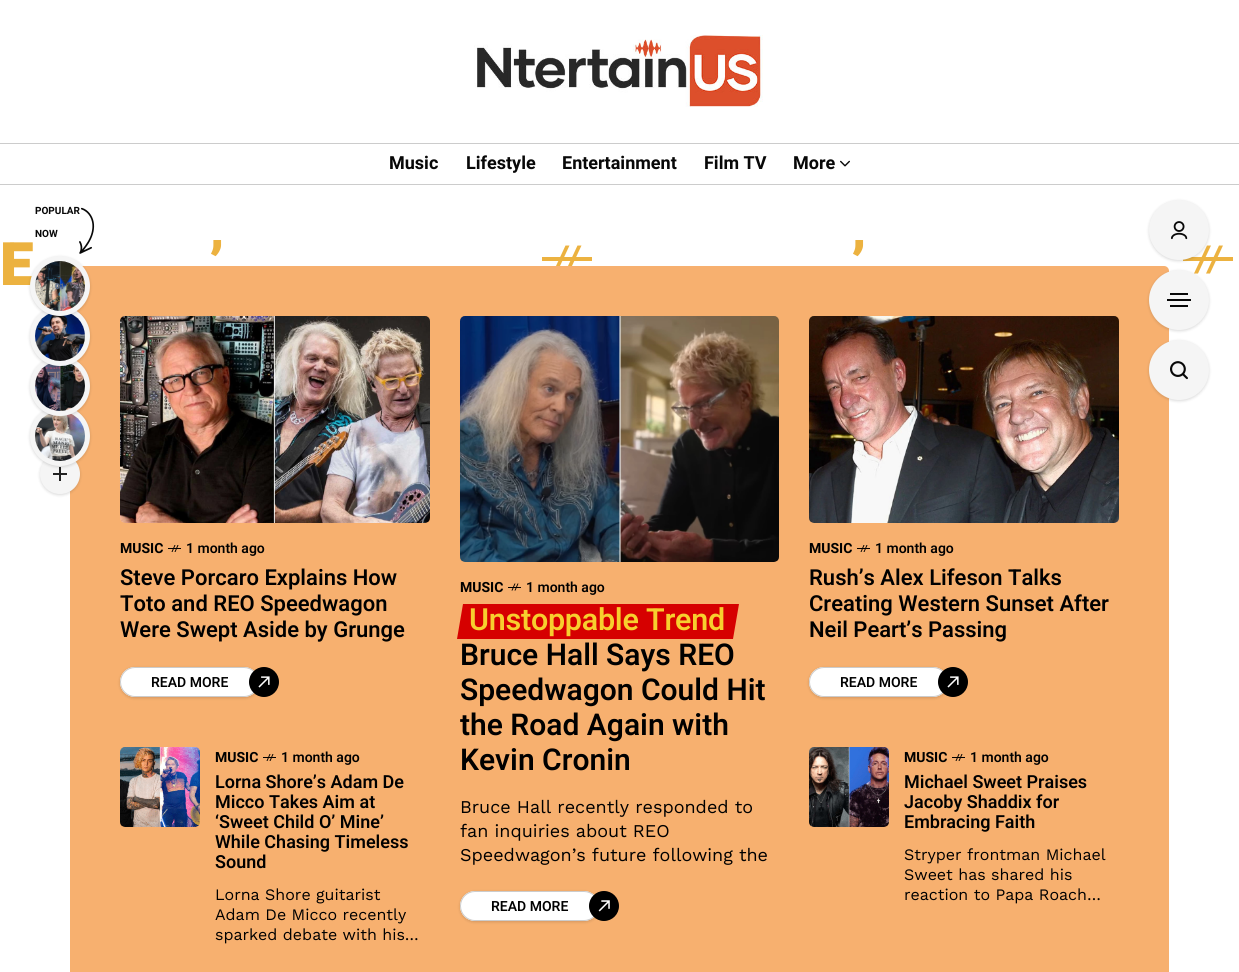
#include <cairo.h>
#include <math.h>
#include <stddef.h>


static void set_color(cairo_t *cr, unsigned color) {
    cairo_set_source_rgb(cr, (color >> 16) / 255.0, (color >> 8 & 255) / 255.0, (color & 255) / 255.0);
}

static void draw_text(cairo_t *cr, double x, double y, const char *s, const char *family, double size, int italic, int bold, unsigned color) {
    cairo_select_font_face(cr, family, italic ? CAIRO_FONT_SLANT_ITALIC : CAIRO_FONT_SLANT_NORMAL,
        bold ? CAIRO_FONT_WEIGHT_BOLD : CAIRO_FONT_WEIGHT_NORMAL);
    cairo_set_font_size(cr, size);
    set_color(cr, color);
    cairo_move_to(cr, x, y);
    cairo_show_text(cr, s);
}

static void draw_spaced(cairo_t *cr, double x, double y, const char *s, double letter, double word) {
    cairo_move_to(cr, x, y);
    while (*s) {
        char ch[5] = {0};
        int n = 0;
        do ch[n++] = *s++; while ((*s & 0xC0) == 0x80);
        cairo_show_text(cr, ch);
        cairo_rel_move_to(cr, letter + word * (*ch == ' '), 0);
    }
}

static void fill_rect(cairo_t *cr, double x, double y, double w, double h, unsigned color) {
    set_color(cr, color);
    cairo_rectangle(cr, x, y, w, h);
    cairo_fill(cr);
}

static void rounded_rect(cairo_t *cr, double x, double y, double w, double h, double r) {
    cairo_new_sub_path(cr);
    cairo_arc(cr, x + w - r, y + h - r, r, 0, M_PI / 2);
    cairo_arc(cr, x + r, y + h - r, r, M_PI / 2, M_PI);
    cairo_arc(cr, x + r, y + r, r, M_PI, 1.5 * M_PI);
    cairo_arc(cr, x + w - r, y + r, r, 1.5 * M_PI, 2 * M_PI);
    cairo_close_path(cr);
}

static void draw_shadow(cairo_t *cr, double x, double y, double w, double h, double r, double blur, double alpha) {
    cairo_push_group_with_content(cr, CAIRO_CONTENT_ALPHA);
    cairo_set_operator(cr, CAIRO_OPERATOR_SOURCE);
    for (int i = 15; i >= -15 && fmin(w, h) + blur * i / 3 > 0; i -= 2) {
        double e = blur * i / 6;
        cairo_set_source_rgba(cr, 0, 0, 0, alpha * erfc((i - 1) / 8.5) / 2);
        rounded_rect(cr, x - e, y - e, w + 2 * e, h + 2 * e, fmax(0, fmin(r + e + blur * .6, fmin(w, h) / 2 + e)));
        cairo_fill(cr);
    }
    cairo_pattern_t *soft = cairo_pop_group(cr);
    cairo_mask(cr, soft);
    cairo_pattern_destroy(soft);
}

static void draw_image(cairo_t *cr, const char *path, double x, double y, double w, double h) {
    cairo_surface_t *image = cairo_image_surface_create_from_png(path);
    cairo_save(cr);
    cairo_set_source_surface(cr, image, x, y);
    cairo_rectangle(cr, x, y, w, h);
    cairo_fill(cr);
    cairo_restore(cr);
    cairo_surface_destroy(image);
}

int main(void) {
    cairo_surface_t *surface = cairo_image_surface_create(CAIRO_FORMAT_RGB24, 1239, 972);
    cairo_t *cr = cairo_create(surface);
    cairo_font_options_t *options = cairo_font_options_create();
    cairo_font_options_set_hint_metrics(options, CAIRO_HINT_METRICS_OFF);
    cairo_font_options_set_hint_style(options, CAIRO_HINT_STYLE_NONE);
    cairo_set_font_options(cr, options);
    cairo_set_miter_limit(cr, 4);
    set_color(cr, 0xFFFFFF);
    cairo_paint(cr);
    draw_image(cr, "assets/img1.png", 474, 35, 289, 72);
    fill_rect(cr, 0, 143, 1239, 1, 0xCCCCCC);
    fill_rect(cr, 0, 184, 1239, 1, 0xCCCCCC);
    draw_text(cr, 389, 169, "Music", "Heebo", 18, 0, 1, 0x080808);
    draw_text(cr, 466, 169, "Lifestyle", "Heebo", 18, 0, 1, 0x080808);
    draw_text(cr, 562, 169, "Entertainment", "Heebo", 18, 0, 1, 0x080808);
    draw_text(cr, 704, 169, "Film TV", "Heebo", 18, 0, 1, 0x080808);
    draw_text(cr, 793, 169, "More", "Heebo", 18, 0, 1, 0x080808);
    draw_image(cr, "assets/img2.png", 840, 160, 10, 7);
    draw_text(cr, 0, 285, "E", "Heebo Black", 60, 0, 0, 0xECB240);
    draw_text(cr, 209, 285, "’", "Heebo Black", 60, 0, 0, 0xECB240);
    fill_rect(cr, 542, 257, 50, 4, 0xECB240);
    cairo_new_path(cr);
    cairo_move_to(cr, 577.5, 245.5);
    cairo_line_to(cr, 581.5, 245.5);
    cairo_line_to(cr, 568.5, 273.5);
    cairo_line_to(cr, 564.5, 273.5);
    cairo_close_path(cr);
    cairo_fill(cr);
    cairo_new_path(cr);
    cairo_move_to(cr, 565.5, 245.5);
    cairo_line_to(cr, 569.5, 245.5);
    cairo_line_to(cr, 556.5, 273.5);
    cairo_line_to(cr, 552.5, 273.5);
    cairo_close_path(cr);
    cairo_fill(cr);
    draw_text(cr, 851, 285, "’", "Heebo Black", 60, 0, 0, 0xECB240);
    fill_rect(cr, 1183, 257, 50, 4, 0xECB240);
    cairo_new_path(cr);
    cairo_move_to(cr, 1219, 245.5);
    cairo_line_to(cr, 1223, 245.5);
    cairo_line_to(cr, 1210, 273.5);
    cairo_line_to(cr, 1206, 273.5);
    cairo_close_path(cr);
    cairo_fill(cr);
    cairo_new_path(cr);
    cairo_move_to(cr, 1207, 245.5);
    cairo_line_to(cr, 1211, 245.5);
    cairo_line_to(cr, 1198, 273.5);
    cairo_line_to(cr, 1194, 273.5);
    cairo_close_path(cr);
    cairo_fill(cr);
    set_color(cr, 0xF7B06F);
    rounded_rect(cr, 70, 266, 1099, 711, 5);
    cairo_fill(cr);
    draw_image(cr, "assets/img3.png", 120, 316, 310, 207);
    draw_text(cr, 120, 553, "MUSIC", "Heebo", 14, 0, 1, 0x000000);
    fill_rect(cr, 168, 548, 13, 1, 0x000000);
    cairo_new_path(cr);
    cairo_move_to(cr, 177.5, 545);
    cairo_line_to(cr, 178.5, 545);
    cairo_line_to(cr, 175.5, 552);
    cairo_line_to(cr, 174.5, 552);
    cairo_close_path(cr);
    cairo_fill(cr);
    cairo_new_path(cr);
    cairo_move_to(cr, 174.5, 545);
    cairo_line_to(cr, 175.5, 545);
    cairo_line_to(cr, 172.5, 552);
    cairo_line_to(cr, 171.5, 552);
    cairo_close_path(cr);
    cairo_fill(cr);
    draw_text(cr, 186, 553, "1 month ago", "Heebo SemiBold", 14, 0, 0, 0x000000);
    draw_text(cr, 120, 585, "Steve Porcaro Explains How", "Heebo SemiBold", 22, 0, 0, 0x000000);
    draw_text(cr, 120, 611, "Toto and REO Speedwagon", "Heebo SemiBold", 22, 0, 0, 0x000000);
    draw_text(cr, 120, 637, "Were Swept Aside by Grunge", "Heebo SemiBold", 22, 0, 0, 0x000000);
    set_color(cr, 0xFFFFFF);
    rounded_rect(cr, 120, 667, 139, 30, 15);
    cairo_fill(cr);
    cairo_save(cr);
    cairo_set_fill_rule(cr, CAIRO_FILL_RULE_EVEN_ODD);
    cairo_new_path(cr);
    cairo_move_to(cr, 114, 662);
    cairo_line_to(cr, 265, 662);
    cairo_line_to(cr, 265, 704);
    cairo_line_to(cr, 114, 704);
    cairo_close_path(cr);
    cairo_move_to(cr, 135, 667);
    cairo_line_to(cr, 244, 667);
    cairo_curve_to(cr, 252.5, 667, 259, 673.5, 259, 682);
    cairo_curve_to(cr, 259, 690.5, 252.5, 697, 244, 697);
    cairo_line_to(cr, 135, 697);
    cairo_curve_to(cr, 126.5, 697, 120, 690.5, 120, 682);
    cairo_curve_to(cr, 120, 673.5, 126.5, 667, 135, 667);
    cairo_close_path(cr);
    cairo_clip(cr);
    set_color(cr, 0x000000);
    draw_shadow(cr, 120, 668, 139, 30, 15, 1.5, 0.15);
    cairo_restore(cr);
    rounded_rect(cr, 120.5, 667.5, 138, 29, 14.5);
    set_color(cr, 0xCCCCCC);
    cairo_set_line_width(cr, 1);
    cairo_stroke(cr);
    draw_text(cr, 151, 687, "READ MORE", "Heebo SemiBold", 14, 0, 0, 0x000000);
    cairo_new_path(cr);
    cairo_arc(cr, 264, 682, 15, 0, 2 * M_PI);
    cairo_fill(cr);
    draw_image(cr, "assets/img4.png", 258, 676, 12, 12);
    draw_image(cr, "assets/img5.png", 120, 747, 80, 80);
    draw_text(cr, 215, 762, "MUSIC", "Heebo", 14, 0, 1, 0x000000);
    fill_rect(cr, 263, 757, 13, 1, 0x000000);
    cairo_new_path(cr);
    cairo_move_to(cr, 272.5, 754);
    cairo_line_to(cr, 273.5, 754);
    cairo_line_to(cr, 270.5, 761);
    cairo_line_to(cr, 269.5, 761);
    cairo_close_path(cr);
    cairo_fill(cr);
    cairo_new_path(cr);
    cairo_move_to(cr, 269.5, 754);
    cairo_line_to(cr, 270.5, 754);
    cairo_line_to(cr, 267.5, 761);
    cairo_line_to(cr, 266.5, 761);
    cairo_close_path(cr);
    cairo_fill(cr);
    draw_text(cr, 281, 762, "1 month ago", "Heebo SemiBold", 14, 0, 0, 0x000000);
    draw_text(cr, 215, 788, "Lorna Shore’s Adam De", "Heebo SemiBold", 18, 0, 0, 0x000000);
    draw_text(cr, 215, 808, "Micco Takes Aim at", "Heebo SemiBold", 18, 0, 0, 0x000000);
    draw_text(cr, 215, 828, "‘Sweet Child O’ Mine’", "Heebo SemiBold", 18, 0, 0, 0x000000);
    draw_text(cr, 215, 848, "While Chasing Timeless", "Heebo SemiBold", 18, 0, 0, 0x000000);
    draw_text(cr, 215, 868, "Sound", "Heebo SemiBold", 18, 0, 0, 0x000000);
    draw_text(cr, 215, 900, "Lorna Shore guitarist", "Work Sans", 16, 0, 0, 0x000000);
    draw_text(cr, 215, 920, "Adam De Micco recently", "Work Sans", 16, 0, 0, 0x000000);
    draw_text(cr, 215, 940, "sparked debate with his…", "Work Sans", 16, 0, 0, 0x000000);
    draw_image(cr, "assets/img6.png", 460, 316, 319, 246);
    draw_text(cr, 460, 592, "MUSIC", "Heebo", 14, 0, 1, 0x000000);
    fill_rect(cr, 508, 587, 13, 1, 0x000000);
    cairo_new_path(cr);
    cairo_move_to(cr, 517.5, 583.5);
    cairo_line_to(cr, 518.5, 583.5);
    cairo_line_to(cr, 515.5, 590.5);
    cairo_line_to(cr, 514.5, 590.5);
    cairo_close_path(cr);
    cairo_fill(cr);
    cairo_new_path(cr);
    cairo_move_to(cr, 514.5, 583.5);
    cairo_line_to(cr, 515.5, 583.5);
    cairo_line_to(cr, 512.5, 590.5);
    cairo_line_to(cr, 511.5, 590.5);
    cairo_close_path(cr);
    cairo_fill(cr);
    draw_text(cr, 526, 592, "1 month ago", "Heebo SemiBold", 14, 0, 0, 0x000000);
    set_color(cr, 0xD60000);
    cairo_new_path(cr);
    cairo_move_to(cr, 463, 604);
    cairo_line_to(cr, 739, 604);
    cairo_line_to(cr, 733, 639);
    cairo_line_to(cr, 457, 639);
    cairo_close_path(cr);
    cairo_fill(cr);
    cairo_set_font_size(cr, 30.5);
    set_color(cr, 0xF7CF2E);
    draw_spaced(cr, 469, 630, "Unstoppable Trend", -0.25, 0);
    draw_text(cr, 460, 665, "Bruce Hall Says REO", "Heebo SemiBold", 30, 0, 0, 0x000000);
    draw_text(cr, 460, 700, "Speedwagon Could Hit", "Heebo SemiBold", 30, 0, 0, 0x000000);
    draw_text(cr, 460, 735, "the Road Again with", "Heebo SemiBold", 30, 0, 0, 0x000000);
    draw_text(cr, 460, 770, "Kevin Cronin", "Heebo SemiBold", 30, 0, 0, 0x000000);
    draw_text(cr, 460, 813, "Bruce Hall recently responded to", "Work Sans", 18, 0, 0, 0x000000);
    draw_text(cr, 460, 837, "fan inquiries about REO", "Work Sans", 18, 0, 0, 0x000000);
    draw_text(cr, 460, 861, "Speedwagon’s future following the", "Work Sans", 18, 0, 0, 0x000000);
    set_color(cr, 0xFFFFFF);
    rounded_rect(cr, 460, 891, 139, 30, 15);
    cairo_fill(cr);
    cairo_save(cr);
    cairo_set_fill_rule(cr, CAIRO_FILL_RULE_EVEN_ODD);
    cairo_new_path(cr);
    cairo_move_to(cr, 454, 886);
    cairo_line_to(cr, 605, 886);
    cairo_line_to(cr, 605, 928);
    cairo_line_to(cr, 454, 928);
    cairo_close_path(cr);
    cairo_move_to(cr, 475, 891);
    cairo_line_to(cr, 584, 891);
    cairo_curve_to(cr, 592.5, 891, 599, 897.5, 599, 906);
    cairo_curve_to(cr, 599, 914.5, 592.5, 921, 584, 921);
    cairo_line_to(cr, 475, 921);
    cairo_curve_to(cr, 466.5, 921, 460, 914.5, 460, 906);
    cairo_curve_to(cr, 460, 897.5, 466.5, 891, 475, 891);
    cairo_close_path(cr);
    cairo_clip(cr);
    set_color(cr, 0x000000);
    draw_shadow(cr, 460, 892, 139, 30, 15, 1.5, 0.15);
    cairo_restore(cr);
    rounded_rect(cr, 460.5, 891.5, 138, 29, 14.5);
    set_color(cr, 0xCCCCCC);
    cairo_stroke(cr);
    draw_text(cr, 491, 911, "READ MORE", "Heebo SemiBold", 14, 0, 0, 0x000000);
    cairo_new_path(cr);
    cairo_arc(cr, 604, 906, 15, 0, 2 * M_PI);
    cairo_fill(cr);
    draw_image(cr, "assets/img7.png", 598, 900, 12, 12);
    draw_image(cr, "assets/img8.png", 809, 316, 310, 207);
    draw_text(cr, 809, 553, "MUSIC", "Heebo", 14, 0, 1, 0x000000);
    fill_rect(cr, 857, 548, 13, 1, 0x000000);
    cairo_new_path(cr);
    cairo_move_to(cr, 866.5, 545);
    cairo_line_to(cr, 867.5, 545);
    cairo_line_to(cr, 864.5, 552);
    cairo_line_to(cr, 863.5, 552);
    cairo_close_path(cr);
    cairo_fill(cr);
    cairo_new_path(cr);
    cairo_move_to(cr, 863.5, 545);
    cairo_line_to(cr, 864.5, 545);
    cairo_line_to(cr, 861.5, 552);
    cairo_line_to(cr, 860.5, 552);
    cairo_close_path(cr);
    cairo_fill(cr);
    draw_text(cr, 875, 553, "1 month ago", "Heebo SemiBold", 14, 0, 0, 0x000000);
    draw_text(cr, 809, 585, "Rush’s Alex Lifeson Talks", "Heebo SemiBold", 22, 0, 0, 0x000000);
    draw_text(cr, 809, 611, "Creating Western Sunset After", "Heebo SemiBold", 22, 0, 0, 0x000000);
    draw_text(cr, 809, 637, "Neil Peart’s Passing", "Heebo SemiBold", 22, 0, 0, 0x000000);
    set_color(cr, 0xFFFFFF);
    rounded_rect(cr, 809, 667, 139, 30, 15);
    cairo_fill(cr);
    cairo_save(cr);
    cairo_set_fill_rule(cr, CAIRO_FILL_RULE_EVEN_ODD);
    cairo_new_path(cr);
    cairo_move_to(cr, 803, 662);
    cairo_line_to(cr, 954, 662);
    cairo_line_to(cr, 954, 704);
    cairo_line_to(cr, 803, 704);
    cairo_close_path(cr);
    cairo_move_to(cr, 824, 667);
    cairo_line_to(cr, 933, 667);
    cairo_curve_to(cr, 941.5, 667, 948, 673.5, 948, 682);
    cairo_curve_to(cr, 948, 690.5, 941.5, 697, 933, 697);
    cairo_line_to(cr, 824, 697);
    cairo_curve_to(cr, 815.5, 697, 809, 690.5, 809, 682);
    cairo_curve_to(cr, 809, 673.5, 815.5, 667, 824, 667);
    cairo_close_path(cr);
    cairo_clip(cr);
    set_color(cr, 0x000000);
    draw_shadow(cr, 809, 668, 139, 30, 15, 1.5, 0.15);
    cairo_restore(cr);
    rounded_rect(cr, 809.5, 667.5, 138, 29, 14.5);
    set_color(cr, 0xCCCCCC);
    cairo_stroke(cr);
    draw_text(cr, 840, 687, "READ MORE", "Heebo SemiBold", 14, 0, 0, 0x000000);
    cairo_new_path(cr);
    cairo_arc(cr, 953, 682, 15, 0, 2 * M_PI);
    cairo_fill(cr);
    draw_image(cr, "assets/img4.png", 947, 676, 12, 12);
    draw_image(cr, "assets/img9.png", 809, 747, 80, 80);
    draw_text(cr, 904, 762, "MUSIC", "Heebo", 14, 0, 1, 0x000000);
    fill_rect(cr, 952, 757, 13, 1, 0x000000);
    cairo_new_path(cr);
    cairo_move_to(cr, 961.5, 754);
    cairo_line_to(cr, 962.5, 754);
    cairo_line_to(cr, 959.5, 761);
    cairo_line_to(cr, 958.5, 761);
    cairo_close_path(cr);
    cairo_fill(cr);
    cairo_new_path(cr);
    cairo_move_to(cr, 958.5, 754);
    cairo_line_to(cr, 959.5, 754);
    cairo_line_to(cr, 956.5, 761);
    cairo_line_to(cr, 955.5, 761);
    cairo_close_path(cr);
    cairo_fill(cr);
    draw_text(cr, 970, 762, "1 month ago", "Heebo SemiBold", 14, 0, 0, 0x000000);
    draw_text(cr, 904, 788, "Michael Sweet Praises", "Heebo SemiBold", 18, 0, 0, 0x000000);
    draw_text(cr, 904, 808, "Jacoby Shaddix for", "Heebo SemiBold", 18, 0, 0, 0x000000);
    draw_text(cr, 904, 828, "Embracing Faith", "Heebo SemiBold", 18, 0, 0, 0x000000);
    draw_text(cr, 904, 860, "Stryper frontman Michael", "Work Sans", 16, 0, 0, 0x000000);
    draw_text(cr, 904, 880, "Sweet has shared his", "Work Sans", 16, 0, 0, 0x000000);
    draw_text(cr, 904, 900, "reaction to Papa Roach…", "Work Sans", 16, 0, 0, 0x000000);
    set_color(cr, 0x000000);
    draw_shadow(cr, 1149, 201, 60, 60, 30, 1.5, 0.15);
    set_color(cr, 0xF5F5F5);
    cairo_arc(cr, 1179, 230, 30, 0, 2 * M_PI);
    cairo_fill(cr);
    draw_image(cr, "assets/img10.png", 1171, 221, 17, 19);
    set_color(cr, 0x000000);
    draw_shadow(cr, 1149, 271, 60, 60, 30, 1.5, 0.15);
    set_color(cr, 0xF5F5F5);
    cairo_arc(cr, 1179, 300, 30, 0, 2 * M_PI);
    cairo_fill(cr);
    fill_rect(cr, 1167, 299, 24, 2, 0x080808);
    fill_rect(cr, 1170, 293, 18, 2, 0x080808);
    fill_rect(cr, 1170, 305, 18, 2, 0x080808);
    set_color(cr, 0x000000);
    draw_shadow(cr, 1149, 341, 60, 60, 30, 1.5, 0.15);
    set_color(cr, 0xF5F5F5);
    cairo_arc(cr, 1179, 370, 30, 0, 2 * M_PI);
    cairo_fill(cr);
    draw_image(cr, "assets/img11.png", 1170, 361, 18, 19);
    draw_text(cr, 35, 214, "POPULAR", "Heebo", 10, 0, 1, 0x080808);
    set_color(cr, 0x000000);
    draw_shadow(cr, 40, 455, 40, 40, 20, 1.5, 0.15);
    set_color(cr, 0xF5F5F5);
    cairo_arc(cr, 60, 474, 20, 0, 2 * M_PI);
    cairo_fill(cr);
    fill_rect(cr, 53, 473, 14, 2, 0x222222);
    fill_rect(cr, 59, 467, 2, 14, 0x222222);
    set_color(cr, 0x000000);
    draw_shadow(cr, 30, 407, 60, 60, 30, 1.5, 0.15);
    set_color(cr, 0xF5F5F5);
    cairo_arc(cr, 60, 436, 30, 0, 2 * M_PI);
    cairo_fill(cr);
    draw_image(cr, "assets/img16.png", 35, 413, 50, 48);
    set_color(cr, 0x000000);
    draw_shadow(cr, 30, 357, 60, 60, 30, 1.5, 0.15);
    set_color(cr, 0xF5F5F5);
    cairo_arc(cr, 60, 386, 30, 0, 2 * M_PI);
    cairo_fill(cr);
    draw_image(cr, "assets/img15.png", 35, 363, 50, 48);
    set_color(cr, 0x000000);
    draw_shadow(cr, 30, 307, 60, 60, 30, 1.5, 0.15);
    set_color(cr, 0xF5F5F5);
    cairo_arc(cr, 60, 336, 30, 0, 2 * M_PI);
    cairo_fill(cr);
    draw_image(cr, "assets/img14.png", 35, 313, 50, 48);
    set_color(cr, 0x000000);
    draw_shadow(cr, 30, 257, 60, 60, 30, 1.5, 0.15);
    draw_image(cr, "assets/img12.png", 79, 207, 16, 47);
    draw_text(cr, 35, 237, "NOW", "Heebo", 10, 0, 1, 0x080808);
    set_color(cr, 0xF5F5F5);
    cairo_new_path(cr);
    cairo_arc(cr, 60, 286, 30, 0, 2 * M_PI);
    cairo_fill(cr);
    draw_image(cr, "assets/img13.png", 35, 261, 50, 50);
    draw_text(cr, 55, 289, "01", "Heebo Black", 8, 0, 0, 0x596B89);
    draw_text(cr, 55, 339, "02", "Heebo Black", 8, 0, 0, 0x342E2F);
    cairo_surface_write_to_png(surface, "output.png");
    cairo_font_options_destroy(options);
    cairo_destroy(cr);
    cairo_surface_destroy(surface);
    return 0;
}
